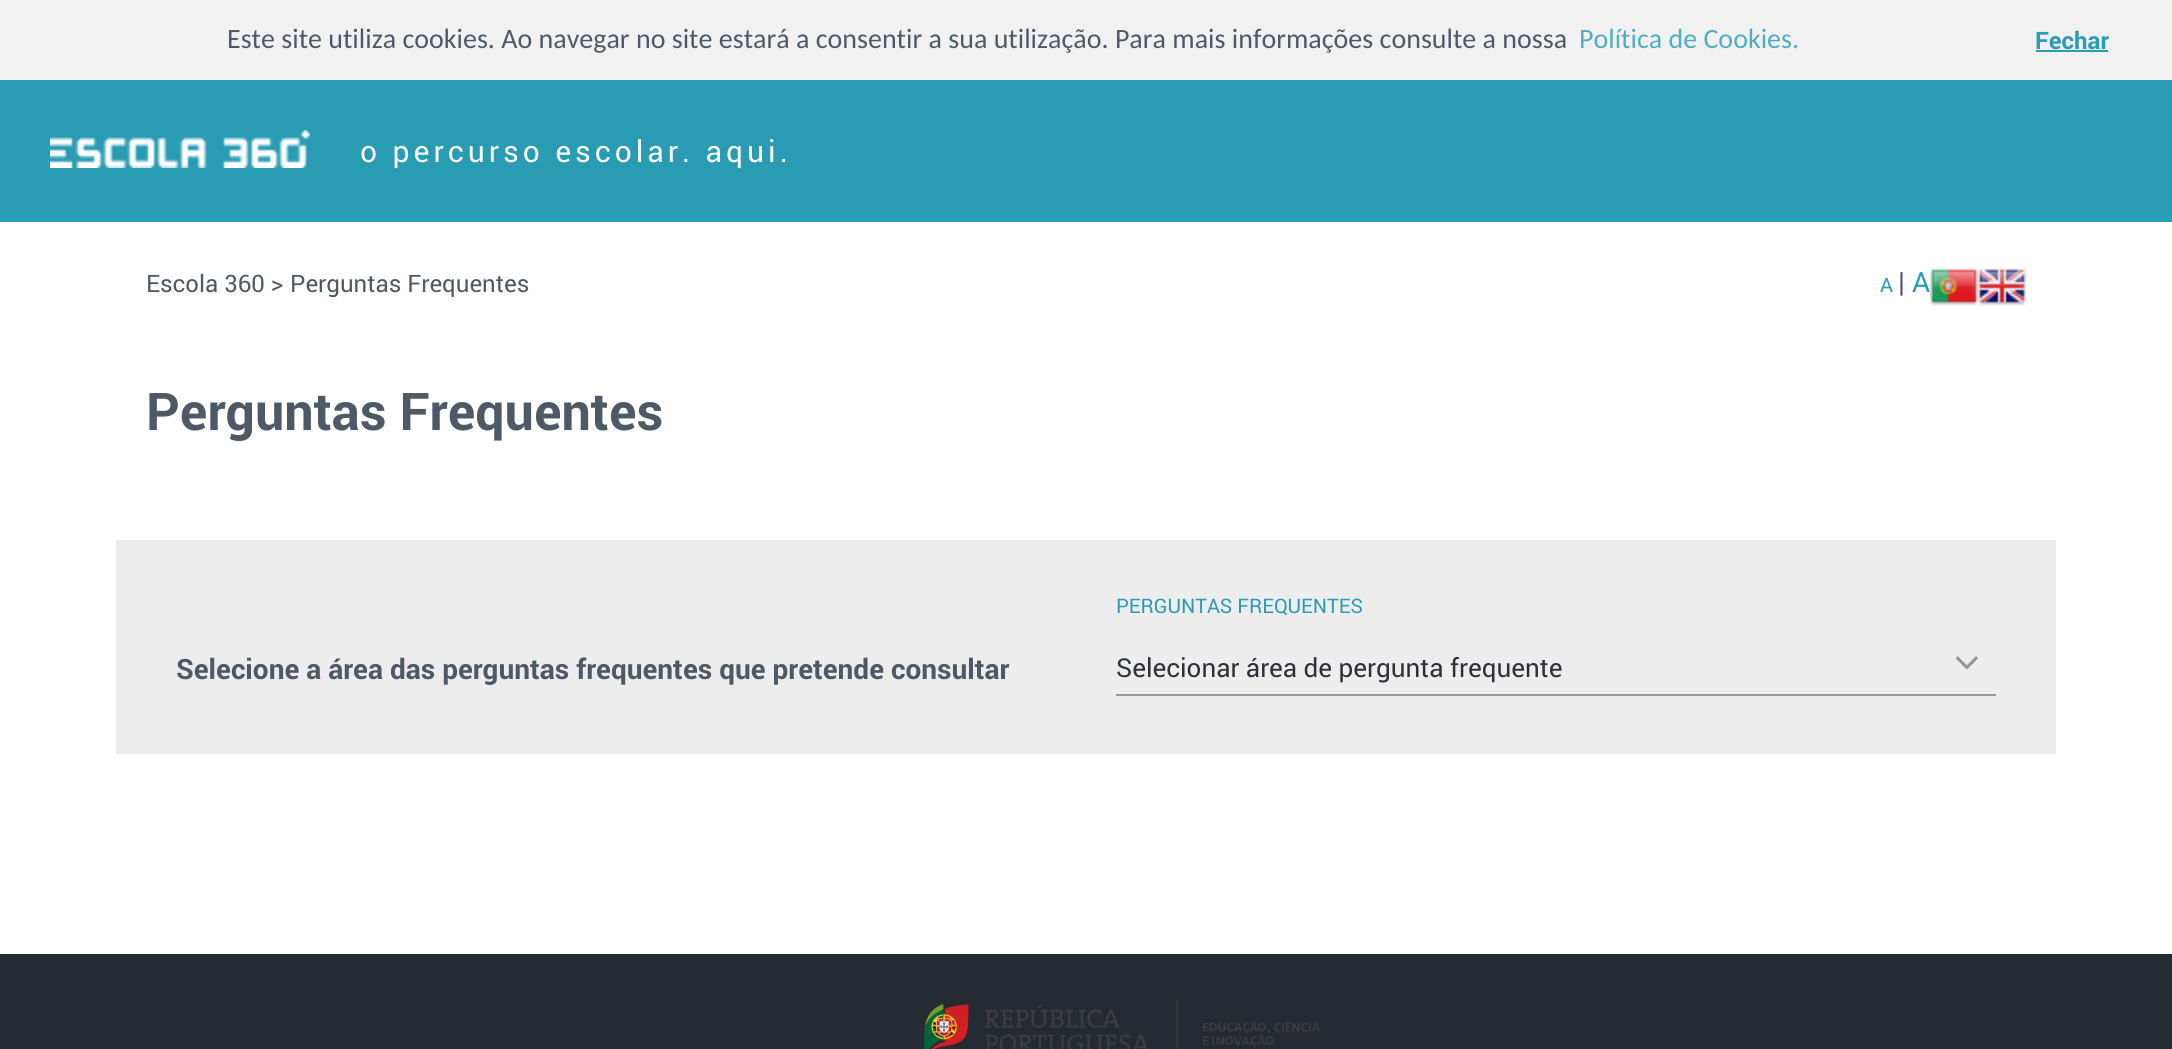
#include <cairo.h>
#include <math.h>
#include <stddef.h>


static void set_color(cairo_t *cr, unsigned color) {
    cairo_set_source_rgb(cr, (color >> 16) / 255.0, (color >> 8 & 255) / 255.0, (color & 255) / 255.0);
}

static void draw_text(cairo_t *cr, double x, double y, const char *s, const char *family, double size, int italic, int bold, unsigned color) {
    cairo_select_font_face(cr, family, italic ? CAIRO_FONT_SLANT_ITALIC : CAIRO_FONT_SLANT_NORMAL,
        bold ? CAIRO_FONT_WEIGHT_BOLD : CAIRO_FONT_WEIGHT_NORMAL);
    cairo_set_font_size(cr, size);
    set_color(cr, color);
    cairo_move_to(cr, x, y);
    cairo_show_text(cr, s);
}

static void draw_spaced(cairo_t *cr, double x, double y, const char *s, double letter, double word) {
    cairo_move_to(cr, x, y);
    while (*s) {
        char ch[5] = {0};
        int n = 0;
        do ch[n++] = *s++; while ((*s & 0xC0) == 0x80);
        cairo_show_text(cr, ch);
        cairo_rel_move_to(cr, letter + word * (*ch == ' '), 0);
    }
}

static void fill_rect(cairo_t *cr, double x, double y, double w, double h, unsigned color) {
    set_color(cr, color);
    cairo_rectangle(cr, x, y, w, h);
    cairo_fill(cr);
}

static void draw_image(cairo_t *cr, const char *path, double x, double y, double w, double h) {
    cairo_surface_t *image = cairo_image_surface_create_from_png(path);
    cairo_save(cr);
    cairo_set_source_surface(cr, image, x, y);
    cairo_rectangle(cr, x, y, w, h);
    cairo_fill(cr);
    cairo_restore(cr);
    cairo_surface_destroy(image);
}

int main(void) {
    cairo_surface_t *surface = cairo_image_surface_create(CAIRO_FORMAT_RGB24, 2172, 1049);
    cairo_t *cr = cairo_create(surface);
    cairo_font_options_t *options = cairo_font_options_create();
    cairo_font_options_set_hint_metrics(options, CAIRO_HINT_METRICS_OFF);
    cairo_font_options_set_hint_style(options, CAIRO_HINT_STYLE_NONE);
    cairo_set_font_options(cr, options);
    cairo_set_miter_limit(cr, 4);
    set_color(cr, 0xFFFFFF);
    cairo_paint(cr);
    fill_rect(cr, 0, 0, 2172, 80, 0xF1F1F2);
    draw_text(cr, 227, 48, "Este site utiliza cookies. Ao navegar no site estará a consentir a sua utilização. Para mais informações consulte a nossa", "Carlito", 28, 0, 0, 0x4F5966);
    draw_text(cr, 1579, 48, "Política de Cookies.", "Carlito", 28, 0, 0, 0x51ADC0);
    draw_text(cr, 2035, 49, "Fechar", "Roboto", 24, 0, 1, 0x299CB4);
    fill_rect(cr, 2036, 50, 72, 2, 0x299CB4);
    fill_rect(cr, 0, 80, 2172, 142, 0x299CB4);
    draw_image(cr, "assets/img1.png", 50, 130, 260, 38);
    cairo_select_font_face(cr, "Roboto", CAIRO_FONT_SLANT_NORMAL, CAIRO_FONT_WEIGHT_NORMAL);
    cairo_set_font_size(cr, 30);
    set_color(cr, 0xFFFFFF);
    draw_spaced(cr, 360, 162, "o percurso escolar. aqui.", 4, 0);
    draw_text(cr, 146, 292, "Escola 360 >", "Roboto", 24, 0, 0, 0x4F5966);
    draw_text(cr, 290, 292, "Perguntas Frequentes", "Roboto", 24, 0, 0, 0x4F5966);
    draw_text(cr, 1880, 292, "A", "Roboto", 20, 0, 0, 0x299CB4);
    draw_text(cr, 1898, 292, "|", "Roboto", 28, 0, 0, 0x4F5966);
    draw_text(cr, 1912, 292, "A", "Roboto", 28, 0, 0, 0x299CB4);
    draw_image(cr, "assets/img2.png", 1930, 268, 48, 38);
    draw_image(cr, "assets/img3.png", 1978, 268, 48, 38);
    draw_text(cr, 146, 430, "Perguntas Frequentes", "Roboto", 52, 0, 1, 0x4F5966);
    fill_rect(cr, 116, 540, 1940, 214, 0xEDEDED);
    draw_text(cr, 176, 679, "Selecione a área das perguntas frequentes que pretende consultar", "Roboto", 28, 0, 1, 0x4F5966);
    draw_text(cr, 1116, 613, "PERGUNTAS FREQUENTES", "Roboto", 20, 0, 0, 0x299CB4);
    fill_rect(cr, 1116, 694, 880, 2, 0x999999);
    draw_text(cr, 1116, 677, "Selecionar área de pergunta frequente", "Roboto", 26, 0, 0, 0x2E3138);
    draw_image(cr, "assets/img4.png", 1955, 656, 23, 14);
    fill_rect(cr, 0, 954, 2172, 95, 0x262B33);
    draw_image(cr, "assets/img5.png", 924, 1000, 396, 49);
    cairo_surface_write_to_png(surface, "output.png");
    cairo_font_options_destroy(options);
    cairo_destroy(cr);
    cairo_surface_destroy(surface);
    return 0;
}
